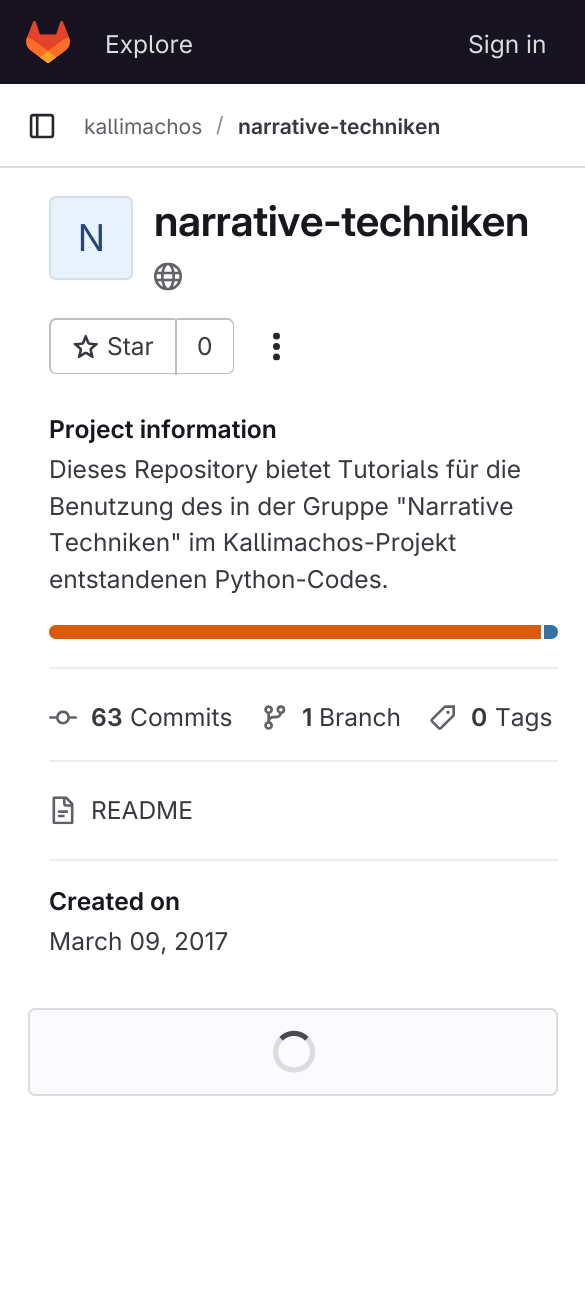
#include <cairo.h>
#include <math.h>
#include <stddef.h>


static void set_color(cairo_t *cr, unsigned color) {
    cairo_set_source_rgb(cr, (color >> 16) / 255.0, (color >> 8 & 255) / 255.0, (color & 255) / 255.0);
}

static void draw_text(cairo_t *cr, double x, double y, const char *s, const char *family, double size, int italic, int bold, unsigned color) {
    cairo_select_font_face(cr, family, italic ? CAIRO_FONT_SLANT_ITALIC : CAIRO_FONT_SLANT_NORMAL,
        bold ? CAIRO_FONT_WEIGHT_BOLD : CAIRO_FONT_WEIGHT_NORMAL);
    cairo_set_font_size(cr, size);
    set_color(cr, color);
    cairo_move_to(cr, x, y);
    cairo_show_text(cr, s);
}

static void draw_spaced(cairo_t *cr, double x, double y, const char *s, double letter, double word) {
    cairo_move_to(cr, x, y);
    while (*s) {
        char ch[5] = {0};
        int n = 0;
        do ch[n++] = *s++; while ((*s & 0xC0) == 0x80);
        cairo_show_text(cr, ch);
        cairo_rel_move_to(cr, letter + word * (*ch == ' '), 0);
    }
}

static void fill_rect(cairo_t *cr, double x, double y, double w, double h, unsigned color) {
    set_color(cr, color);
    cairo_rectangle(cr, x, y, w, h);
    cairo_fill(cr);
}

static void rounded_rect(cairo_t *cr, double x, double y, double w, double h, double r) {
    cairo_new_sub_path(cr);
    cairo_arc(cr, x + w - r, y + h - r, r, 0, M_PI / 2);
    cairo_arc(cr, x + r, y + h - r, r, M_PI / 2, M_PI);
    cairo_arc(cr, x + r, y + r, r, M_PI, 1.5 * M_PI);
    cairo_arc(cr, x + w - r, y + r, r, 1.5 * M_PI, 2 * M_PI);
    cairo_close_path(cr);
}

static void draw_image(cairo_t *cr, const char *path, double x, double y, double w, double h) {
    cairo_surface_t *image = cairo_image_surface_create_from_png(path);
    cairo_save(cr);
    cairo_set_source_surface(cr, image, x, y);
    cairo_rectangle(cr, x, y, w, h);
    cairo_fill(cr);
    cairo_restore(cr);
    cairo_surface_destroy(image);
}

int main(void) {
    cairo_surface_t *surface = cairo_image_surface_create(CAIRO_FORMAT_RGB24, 585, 1292);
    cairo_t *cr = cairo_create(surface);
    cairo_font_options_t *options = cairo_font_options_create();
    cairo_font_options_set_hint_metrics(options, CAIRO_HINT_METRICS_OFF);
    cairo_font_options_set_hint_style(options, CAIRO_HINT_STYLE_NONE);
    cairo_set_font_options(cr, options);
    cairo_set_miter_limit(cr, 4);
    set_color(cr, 0xFFFFFF);
    cairo_paint(cr);
    fill_rect(cr, 0, 0, 585, 84, 0x171321);
    draw_image(cr, "assets/img1.png", 26, 21, 44, 42);
    draw_text(cr, 105, 53, "Explore", "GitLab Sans", 24.5, 0, 0, 0xDCDCDE);
    draw_text(cr, 468, 53, "Sign in", "GitLab Sans", 24.5, 0, 0, 0xDCDCDE);
    fill_rect(cr, 0, 166, 585, 2, 0xDCDCDE);
    draw_image(cr, "assets/img2.png", 29, 113, 26, 26);
    draw_text(cr, 84, 134, "kallimachos", "GitLab Sans", 21, 0, 0, 0x626168);
    draw_text(cr, 216, 132, "/", "GitLab Sans", 21, 0, 0, 0x89888D);
    draw_text(cr, 238, 134, "narrative-techniken", "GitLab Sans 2 SemiBold", 21, 0, 0, 0x3A383F);
    set_color(cr, 0xE7F2FC);
    rounded_rect(cr, 49, 196, 84, 84, 7);
    cairo_fill(cr);
    rounded_rect(cr, 50, 197, 82, 82, 6);
    cairo_set_source_rgba(cr, 0.02, 0.02, 0.024, 0.08);
    cairo_stroke(cr);
    draw_text(cr, 78, 251, "N", "GitLab Sans 2", 37, 0, 0, 0x284779);
    cairo_select_font_face(cr, "GitLab Sans SemiBold", CAIRO_FONT_SLANT_NORMAL, CAIRO_FONT_WEIGHT_NORMAL);
    cairo_set_font_size(cr, 42);
    set_color(cr, 0x18171D);
    draw_spaced(cr, 154, 236, "narrative-techniken", -0.4, 0);
    draw_image(cr, "assets/img3.png", 154, 262, 28, 29);
    set_color(cr, 0xBFBFC3);
    cairo_set_fill_rule(cr, CAIRO_FILL_RULE_EVEN_ODD);
    cairo_new_path(cr);
    cairo_move_to(cr, 56, 318);
    cairo_line_to(cr, 175, 318);
    cairo_line_to(cr, 175, 374);
    cairo_line_to(cr, 56, 374);
    cairo_curve_to(cr, 52, 374, 49, 371, 49, 368);
    cairo_line_to(cr, 49, 326);
    cairo_curve_to(cr, 49, 322, 52, 318, 56, 318);
    cairo_close_path(cr);
    cairo_move_to(cr, 56, 320);
    cairo_line_to(cr, 175, 320);
    cairo_line_to(cr, 175, 373);
    cairo_line_to(cr, 56, 373);
    cairo_curve_to(cr, 53, 373, 51, 370, 51, 368);
    cairo_line_to(cr, 51, 326);
    cairo_curve_to(cr, 51, 323, 53, 320, 56, 320);
    cairo_close_path(cr);
    cairo_fill(cr);
    draw_image(cr, "assets/img4.png", 73, 334, 25, 25);
    draw_text(cr, 107, 355, "Star", "GitLab Sans", 24.5, 0, 0, 0x3A383F);
    set_color(cr, 0xBFBFC3);
    cairo_new_path(cr);
    cairo_move_to(cr, 177, 318);
    cairo_line_to(cr, 228, 318);
    cairo_curve_to(cr, 231, 318, 234, 322, 234, 326);
    cairo_line_to(cr, 234, 368);
    cairo_curve_to(cr, 234, 371, 231, 374, 228, 374);
    cairo_line_to(cr, 177, 374);
    cairo_close_path(cr);
    cairo_move_to(cr, 177, 320);
    cairo_line_to(cr, 228, 320);
    cairo_curve_to(cr, 230, 320, 233, 323, 233, 326);
    cairo_line_to(cr, 233, 368);
    cairo_curve_to(cr, 233, 370, 230, 373, 228, 373);
    cairo_line_to(cr, 177, 373);
    cairo_close_path(cr);
    cairo_fill(cr);
    fill_rect(cr, 175, 319, 2, 56, 0xBFBFC3);
    draw_text(cr, 197, 355, "0", "GitLab Sans", 24.5, 0, 0, 0x3A383F);
    draw_image(cr, "assets/img5.png", 273, 332, 7, 29);
    fill_rect(cr, 49, 667, 509, 2, 0xECECEF);
    draw_text(cr, 49, 438, "Project information", "GitLab Sans 2 SemiBold", 24.5, 0, 0, 0x18171D);
    draw_text(cr, 49, 478, "Dieses Repository bietet Tutorials für die", "GitLab Sans", 24.5, 0, 0, 0x3A383F);
    draw_text(cr, 49, 515, "Benutzung des in der Gruppe \"Narrative", "GitLab Sans", 24.5, 0, 0, 0x3A383F);
    draw_text(cr, 49, 551, "Techniken\" im Kallimachos-Projekt", "GitLab Sans", 24.5, 0, 0, 0x3A383F);
    draw_text(cr, 49, 588, "entstandenen Python-Codes.", "GitLab Sans", 24.5, 0, 0, 0x3A383F);
    set_color(cr, 0xDA5B0B);
    cairo_new_path(cr);
    cairo_move_to(cr, 56, 625);
    cairo_line_to(cr, 541, 625);
    cairo_line_to(cr, 541, 639);
    cairo_line_to(cr, 56, 639);
    cairo_curve_to(cr, 52, 639, 49, 636, 49, 632);
    cairo_curve_to(cr, 49, 628, 52, 625, 56, 625);
    cairo_close_path(cr);
    cairo_fill(cr);
    set_color(cr, 0x3572A5);
    cairo_new_path(cr);
    cairo_move_to(cr, 544, 625);
    cairo_line_to(cr, 551, 625);
    cairo_curve_to(cr, 555, 625, 558, 628, 558, 632);
    cairo_curve_to(cr, 558, 636, 555, 639, 551, 639);
    cairo_line_to(cr, 544, 639);
    cairo_close_path(cr);
    cairo_fill(cr);
    fill_rect(cr, 49, 760, 509, 2, 0xECECEF);
    draw_image(cr, "assets/img6.png", 49, 710, 28, 15);
    draw_text(cr, 91, 726, "63", "GitLab Sans 2 SemiBold", 24.5, 0, 0, 0x3A383F);
    draw_text(cr, 130, 726, "Commits", "GitLab Sans", 24.5, 0, 0, 0x3A383F);
    draw_image(cr, "assets/img7.png", 264, 705, 22, 25);
    draw_text(cr, 302, 726, "1", "GitLab Sans 2 SemiBold", 24.5, 0, 0, 0x3A383F);
    draw_text(cr, 319, 726, "Branch", "GitLab Sans", 24.5, 0, 0, 0x3A383F);
    draw_image(cr, "assets/img8.png", 430, 705, 25, 25);
    draw_text(cr, 471, 726, "0", "GitLab Sans 2 SemiBold", 24.5, 0, 0, 0x3A383F);
    draw_text(cr, 495, 726, "Tags", "GitLab Sans", 24.5, 0, 0, 0x3A383F);
    fill_rect(cr, 49, 859, 509, 2, 0xECECEF);
    draw_image(cr, "assets/img9.png", 52, 796, 22, 29);
    draw_text(cr, 91, 819, "README", "GitLab Sans", 24.5, 0, 0, 0x3A383F);
    draw_text(cr, 49, 910, "Created on", "GitLab Sans 2 SemiBold", 24.5, 0, 0, 0x18171D);
    draw_text(cr, 49, 950, "March 09, 2017", "GitLab Sans", 24.5, 0, 0, 0x3A383F);
    set_color(cr, 0xFBFAFD);
    rounded_rect(cr, 29, 1009, 528, 86, 6);
    cairo_fill_preserve(cr);
    set_color(cr, 0xDCDCDE);
    cairo_stroke(cr);
    cairo_new_path(cr);
    cairo_move_to(cr, 281, 1039);
    cairo_curve_to(cr, 288, 1031.5, 300, 1031.5, 307, 1039);
    set_color(cr, 0x4C4B51);
    cairo_set_line_width(cr, 5.2);
    cairo_stroke(cr);
    cairo_new_path(cr);
    cairo_move_to(cr, 307, 1039);
    cairo_curve_to(cr, 310.5, 1042, 312.5, 1047, 312.5, 1052);
    cairo_curve_to(cr, 312.5, 1073.5, 280.5, 1077, 276, 1055.5);
    cairo_curve_to(cr, 275, 1049.5, 276.5, 1043, 281, 1039);
    set_color(cr, 0xDCDCDE);
    cairo_stroke(cr);
    cairo_surface_write_to_png(surface, "output.png");
    cairo_font_options_destroy(options);
    cairo_destroy(cr);
    cairo_surface_destroy(surface);
    return 0;
}
